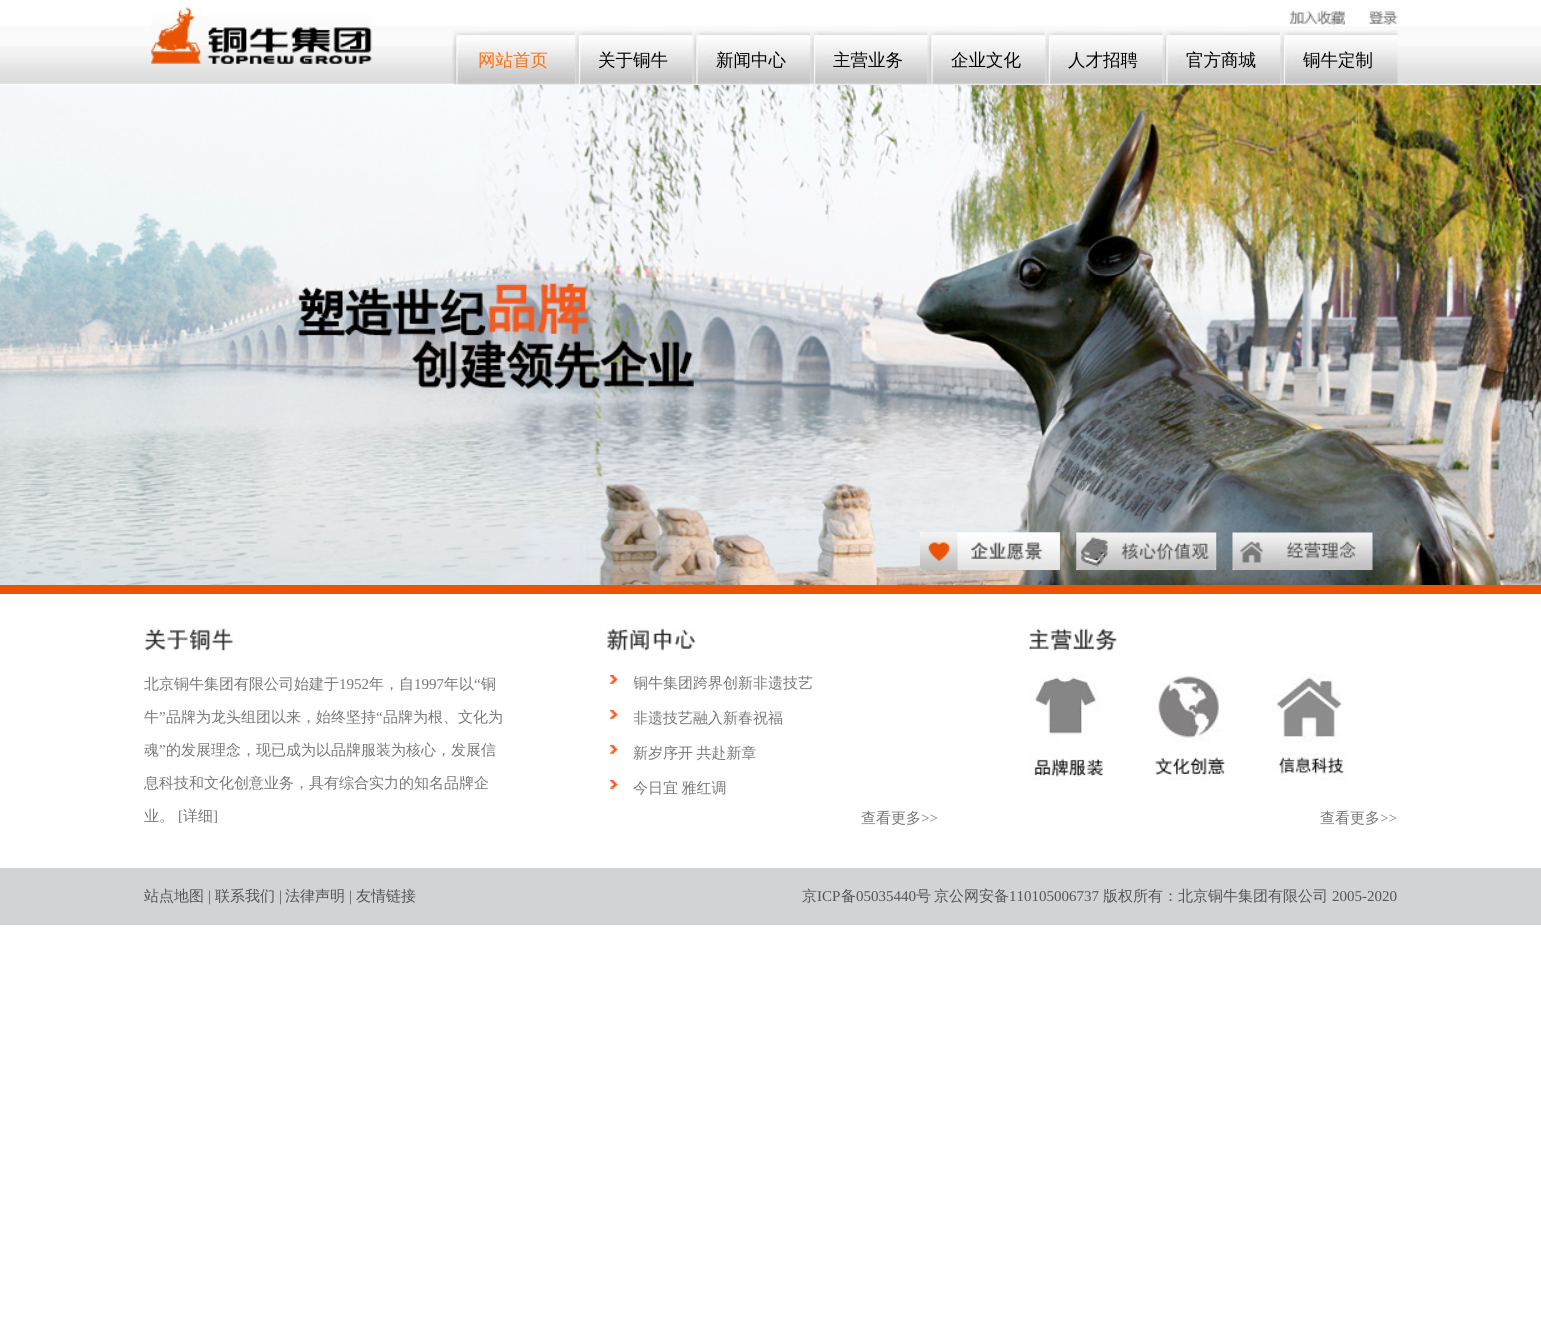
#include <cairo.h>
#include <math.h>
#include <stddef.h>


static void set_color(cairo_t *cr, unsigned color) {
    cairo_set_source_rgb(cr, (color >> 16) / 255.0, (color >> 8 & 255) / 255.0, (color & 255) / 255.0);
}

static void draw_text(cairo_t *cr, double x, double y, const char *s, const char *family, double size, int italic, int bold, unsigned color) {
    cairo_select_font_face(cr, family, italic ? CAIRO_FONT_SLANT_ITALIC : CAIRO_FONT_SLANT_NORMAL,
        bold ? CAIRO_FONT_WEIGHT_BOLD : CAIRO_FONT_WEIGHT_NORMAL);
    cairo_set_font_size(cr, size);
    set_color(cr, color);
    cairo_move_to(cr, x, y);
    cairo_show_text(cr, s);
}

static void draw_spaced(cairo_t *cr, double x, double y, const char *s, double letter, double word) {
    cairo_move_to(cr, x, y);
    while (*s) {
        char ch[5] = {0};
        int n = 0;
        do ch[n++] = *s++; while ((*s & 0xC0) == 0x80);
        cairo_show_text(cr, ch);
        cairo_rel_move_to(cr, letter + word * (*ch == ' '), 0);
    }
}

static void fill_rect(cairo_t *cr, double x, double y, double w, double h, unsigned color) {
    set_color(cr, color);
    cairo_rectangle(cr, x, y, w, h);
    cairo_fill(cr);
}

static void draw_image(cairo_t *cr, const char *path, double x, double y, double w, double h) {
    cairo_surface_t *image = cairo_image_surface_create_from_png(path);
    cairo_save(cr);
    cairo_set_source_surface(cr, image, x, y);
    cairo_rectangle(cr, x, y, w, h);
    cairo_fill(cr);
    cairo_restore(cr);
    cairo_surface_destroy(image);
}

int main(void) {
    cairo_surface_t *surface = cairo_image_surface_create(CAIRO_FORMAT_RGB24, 1541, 1334);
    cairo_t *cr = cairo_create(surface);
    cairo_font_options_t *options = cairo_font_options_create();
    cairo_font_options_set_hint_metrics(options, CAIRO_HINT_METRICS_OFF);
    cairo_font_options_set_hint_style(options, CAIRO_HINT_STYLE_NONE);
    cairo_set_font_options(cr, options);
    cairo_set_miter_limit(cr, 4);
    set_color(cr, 0xFFFFFF);
    cairo_paint(cr);
    draw_image(cr, "assets/img1.png", 0, 26, 1541, 58);
    draw_image(cr, "assets/img2.png", 151, 7, 221, 58);
    draw_image(cr, "assets/img3.png", 1290, 10, 55, 15);
    draw_image(cr, "assets/img4.png", 1368, 11, 30, 14);
    draw_image(cr, "assets/img5.png", 452, 30, 123, 55);
    draw_text(cr, 478, 66, "网站首页", "WenQuanYi Zen Hei Medium", 17.5, 0, 0, 0xFC710C);
    draw_image(cr, "assets/img6.png", 575, 30, 118, 55);
    draw_text(cr, 598, 66, "关于铜牛", "WenQuanYi Zen Hei Medium", 17.5, 0, 0, 0x010101);
    draw_image(cr, "assets/img7.png", 692, 30, 118, 55);
    draw_text(cr, 716, 66, "新闻中心", "WenQuanYi Zen Hei Medium", 17.5, 0, 0, 0x010101);
    draw_image(cr, "assets/img6.png", 810, 30, 118, 55);
    draw_text(cr, 833, 66, "主营业务", "WenQuanYi Zen Hei Medium", 17.5, 0, 0, 0x010101);
    draw_image(cr, "assets/img8.png", 927, 30, 118, 55);
    draw_text(cr, 951, 66, "企业文化", "WenQuanYi Zen Hei Medium", 17.5, 0, 0, 0x010101);
    draw_image(cr, "assets/img6.png", 1045, 30, 118, 55);
    draw_text(cr, 1068, 66, "人才招聘", "WenQuanYi Zen Hei Medium", 17.5, 0, 0, 0x010101);
    draw_image(cr, "assets/img9.png", 1162, 30, 118, 55);
    draw_text(cr, 1186, 66, "官方商城", "WenQuanYi Zen Hei Medium", 17.5, 0, 0, 0x010101);
    draw_image(cr, "assets/img10.png", 1280, 30, 118, 55);
    draw_text(cr, 1303, 66, "铜牛定制", "WenQuanYi Zen Hei Medium", 17.5, 0, 0, 0x010101);
    fill_rect(cr, 0, 585, 1541, 9, 0xEA5404);
    draw_image(cr, "assets/img11.png", 0, 85, 1541, 500);
    draw_image(cr, "assets/img12.png", 298, 283, 396, 107);
    draw_image(cr, "assets/img13.png", 920, 532, 140, 1);
    draw_image(cr, "assets/img14.png", 920, 532, 140, 38);
    draw_image(cr, "assets/img15.png", 1076, 532, 141, 38);
    draw_image(cr, "assets/img16.png", 1232, 532, 141, 38);
    draw_image(cr, "assets/img17.png", 145, 628, 89, 23);
    draw_text(cr, 144, 689, "北京铜牛集团有限公司始建于", "WenQuanYi Zen Hei Medium", 15, 0, 0, 0x777777);
    draw_text(cr, 339, 689, "1952", "Liberation Serif", 15, 0, 0, 0x777777);
    draw_text(cr, 369, 689, "年，自", "WenQuanYi Zen Hei Medium", 15, 0, 0, 0x777777);
    draw_text(cr, 414, 689, "1997", "Liberation Serif", 15, 0, 0, 0x777777);
    draw_text(cr, 444, 689, "年以", "WenQuanYi Zen Hei Medium", 15, 0, 0, 0x777777);
    draw_text(cr, 474, 689, "“", "Liberation Serif", 15, 0, 0, 0x777777);
    draw_text(cr, 481, 689, "铜", "WenQuanYi Zen Hei Medium", 15, 0, 0, 0x777777);
    draw_text(cr, 144, 722, "牛", "WenQuanYi Zen Hei Medium", 15, 0, 0, 0x777777);
    draw_text(cr, 159, 722, "”", "Liberation Serif", 15, 0, 0, 0x777777);
    draw_text(cr, 166, 722, "品牌为龙头组团以来，始终坚持", "WenQuanYi Zen Hei Medium", 15, 0, 0, 0x777777);
    draw_text(cr, 376, 722, "“", "Liberation Serif", 15, 0, 0, 0x777777);
    draw_text(cr, 383, 722, "品牌为根、文化为", "WenQuanYi Zen Hei Medium", 15, 0, 0, 0x777777);
    draw_text(cr, 144, 755, "魂", "WenQuanYi Zen Hei Medium", 15, 0, 0, 0x777777);
    draw_text(cr, 159, 755, "”", "Liberation Serif", 15, 0, 0, 0x777777);
    draw_text(cr, 166, 755, "的发展理念，现已成为以品牌服装为核心，发展信", "WenQuanYi Zen Hei Medium", 15, 0, 0, 0x777777);
    draw_text(cr, 144, 788, "息科技和文化创意业务，具有综合实力的知名品牌企", "WenQuanYi Zen Hei Medium", 15, 0, 0, 0x777777);
    draw_text(cr, 144, 821, "业。", "WenQuanYi Zen Hei Medium", 15, 0, 0, 0x777777);
    draw_text(cr, 178, 821, "[", "Liberation Serif", 15, 0, 0, 0x777777);
    draw_text(cr, 183, 821, "详细", "WenQuanYi Zen Hei Medium", 15, 0, 0, 0x777777);
    draw_text(cr, 213, 821, "]", "Liberation Serif", 15, 0, 0, 0x777777);
    draw_image(cr, "assets/img18.png", 607, 628, 89, 23);
    draw_image(cr, "assets/img19.png", 610, 675, 8, 9);
    cairo_save(cr);
    cairo_rectangle(cr, 634, 673, 305, 21);
    cairo_clip(cr);
    draw_text(cr, 633, 688, "铜牛集团跨界创新非遗技艺", "WenQuanYi Zen Hei Medium", 15, 0, 0, 0x777777);
    cairo_restore(cr);
    draw_image(cr, "assets/img19.png", 610, 710, 8, 9);
    cairo_save(cr);
    cairo_rectangle(cr, 634, 708, 305, 21);
    cairo_clip(cr);
    draw_text(cr, 633, 723, "非遗技艺融入新春祝福", "WenQuanYi Zen Hei Medium", 15, 0, 0, 0x777777);
    cairo_restore(cr);
    draw_image(cr, "assets/img19.png", 610, 745, 8, 9);
    cairo_select_font_face(cr, "WenQuanYi Zen Hei Medium", CAIRO_FONT_SLANT_NORMAL, CAIRO_FONT_WEIGHT_NORMAL);
    draw_spaced(cr, 633, 758, "新岁序开 共赴新章", 0, -1);
    draw_image(cr, "assets/img20.png", 610, 780, 8, 9);
    draw_spaced(cr, 633, 793, "今日宜 雅红调", 0, -1);
    draw_text(cr, 861, 823, "查看更多", "WenQuanYi Zen Hei Medium", 15, 0, 0, 0x777777);
    draw_text(cr, 921, 823, ">>", "Liberation Serif", 15, 0, 0, 0x777777);
    draw_image(cr, "assets/img21.png", 1029, 628, 88, 23);
    draw_image(cr, "assets/img22.png", 1029, 674, 74, 106);
    draw_image(cr, "assets/img23.png", 1155, 675, 71, 105);
    draw_image(cr, "assets/img24.png", 1272, 674, 77, 106);
    draw_text(cr, 1320, 823, "查看更多", "WenQuanYi Zen Hei Medium", 15, 0, 0, 0x777777);
    draw_text(cr, 1380, 823, ">>", "Liberation Serif", 15, 0, 0, 0x777777);
    fill_rect(cr, 0, 868, 1541, 57, 0xD1D3D4);
    draw_text(cr, 144, 901, "站点地图", "WenQuanYi Zen Hei Medium", 15, 0, 0, 0x555555);
    draw_text(cr, 208, 901, "|", "Liberation Serif", 15, 0, 0, 0x555555);
    draw_text(cr, 215, 901, "联系我们", "WenQuanYi Zen Hei Medium", 15, 0, 0, 0x555555);
    draw_text(cr, 279, 901, "|", "Liberation Serif", 15, 0, 0, 0x555555);
    draw_text(cr, 285, 901, "法律声明", "WenQuanYi Zen Hei Medium", 15, 0, 0, 0x555555);
    draw_text(cr, 349, 901, "|", "Liberation Serif", 15, 0, 0, 0x555555);
    draw_text(cr, 356, 901, "友情链接", "WenQuanYi Zen Hei Medium", 15, 0, 0, 0x555555);
    draw_text(cr, 802, 901, "京", "WenQuanYi Zen Hei Medium", 15, 0, 0, 0x555555);
    draw_text(cr, 817, 901, "ICP", "Liberation Serif", 15, 0, 0, 0x555555);
    draw_text(cr, 841, 901, "备", "WenQuanYi Zen Hei Medium", 15, 0, 0, 0x555555);
    draw_text(cr, 856, 901, "05035440", "Liberation Serif", 15, 0, 0, 0x555555);
    draw_text(cr, 916, 901, "号", "WenQuanYi Zen Hei Medium", 15, 0, 0, 0x555555);
    draw_text(cr, 934, 901, "京公网安备", "WenQuanYi Zen Hei Medium", 15, 0, 0, 0x555555);
    draw_text(cr, 1009, 901, "110105006737", "Liberation Serif", 15, 0, 0, 0x555555);
    draw_text(cr, 1103, 901, "版权所有：北京铜牛集团有限公司", "WenQuanYi Zen Hei Medium", 15, 0, 0, 0x555555);
    draw_text(cr, 1332, 901, "2005-2020", "Liberation Serif", 15, 0, 0, 0x555555);
    cairo_surface_write_to_png(surface, "output.png");
    cairo_font_options_destroy(options);
    cairo_destroy(cr);
    cairo_surface_destroy(surface);
    return 0;
}
